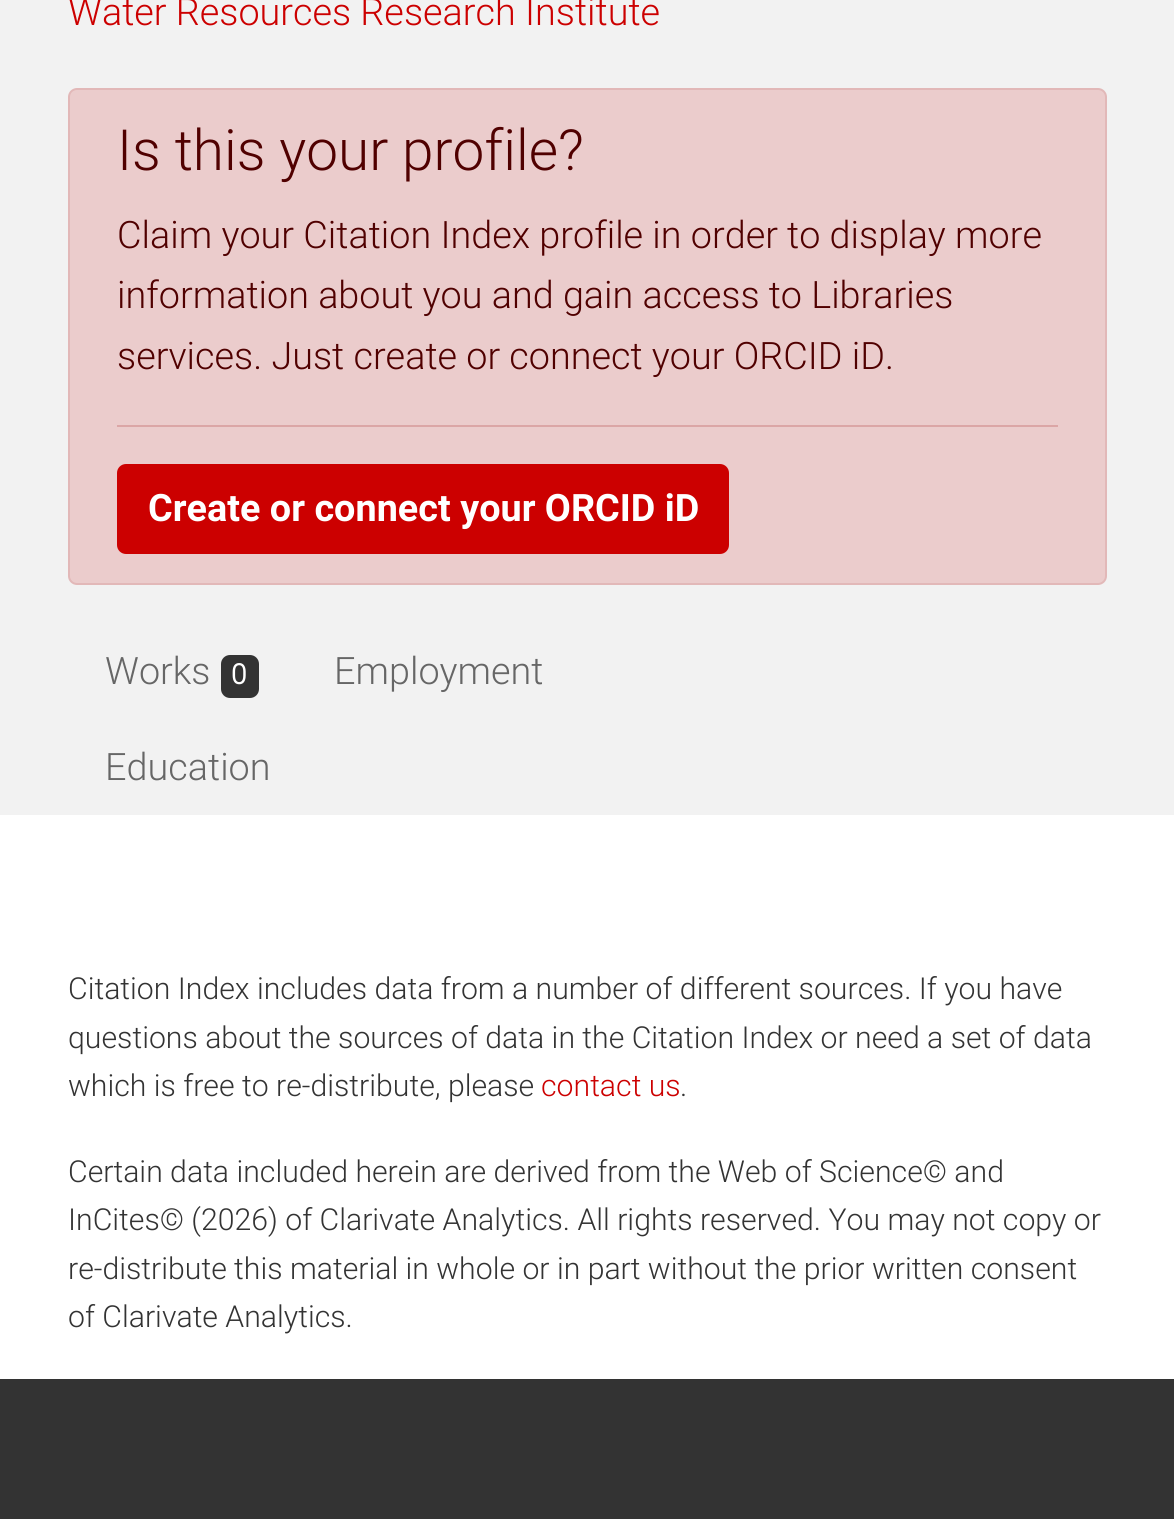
#include <cairo.h>
#include <math.h>
#include <stddef.h>


static void set_color(cairo_t *cr, unsigned color) {
    cairo_set_source_rgb(cr, (color >> 16) / 255.0, (color >> 8 & 255) / 255.0, (color & 255) / 255.0);
}

static void draw_text(cairo_t *cr, double x, double y, const char *s, const char *family, double size, int italic, int bold, unsigned color) {
    cairo_select_font_face(cr, family, italic ? CAIRO_FONT_SLANT_ITALIC : CAIRO_FONT_SLANT_NORMAL,
        bold ? CAIRO_FONT_WEIGHT_BOLD : CAIRO_FONT_WEIGHT_NORMAL);
    cairo_set_font_size(cr, size);
    set_color(cr, color);
    cairo_move_to(cr, x, y);
    cairo_show_text(cr, s);
}

static void fill_rect(cairo_t *cr, double x, double y, double w, double h, unsigned color) {
    set_color(cr, color);
    cairo_rectangle(cr, x, y, w, h);
    cairo_fill(cr);
}

static void rounded_rect(cairo_t *cr, double x, double y, double w, double h, double r) {
    cairo_new_sub_path(cr);
    cairo_arc(cr, x + w - r, y + h - r, r, 0, M_PI / 2);
    cairo_arc(cr, x + r, y + h - r, r, M_PI / 2, M_PI);
    cairo_arc(cr, x + r, y + r, r, M_PI, 1.5 * M_PI);
    cairo_arc(cr, x + w - r, y + r, r, 1.5 * M_PI, 2 * M_PI);
    cairo_close_path(cr);
}

int main(void) {
    cairo_surface_t *surface = cairo_image_surface_create(CAIRO_FORMAT_RGB24, 1174, 1519);
    cairo_t *cr = cairo_create(surface);
    cairo_font_options_t *options = cairo_font_options_create();
    cairo_font_options_set_hint_metrics(options, CAIRO_HINT_METRICS_OFF);
    cairo_font_options_set_hint_style(options, CAIRO_HINT_STYLE_NONE);
    cairo_set_font_options(cr, options);
    cairo_set_miter_limit(cr, 4);
    set_color(cr, 0xFFFFFF);
    cairo_paint(cr);
    fill_rect(cr, 0, 0, 1174, 815, 0xF2F2F2);
    draw_text(cr, 68, 25, "Water Resources Research Institute", "Roboto Light", 37.8, 0, 0, 0xCC0000);
    set_color(cr, 0xEBCCCC);
    rounded_rect(cr, 69, 89, 1037, 495, 8);
    cairo_fill_preserve(cr);
    set_color(cr, 0xE2B8B8);
    cairo_stroke(cr);
    draw_text(cr, 117, 170, "Is this your profile?", "Roboto Light", 56.75, 0, 0, 0x500000);
    draw_text(cr, 117, 248, "Claim your Citation Index profile in order to display more", "Roboto Light", 37.8, 0, 0, 0x500000);
    draw_text(cr, 117, 308, "information about you and gain access to Libraries", "Roboto Light", 37.8, 0, 0, 0x500000);
    draw_text(cr, 117, 369, "services. Just create or connect your ORCID iD.", "Roboto Light", 37.8, 0, 0, 0x500000);
    fill_rect(cr, 117, 425, 941, 2, 0xDBA6A6);
    set_color(cr, 0xCC0000);
    rounded_rect(cr, 118, 465, 610, 88, 8);
    cairo_fill_preserve(cr);
    cairo_stroke(cr);
    draw_text(cr, 148, 521, "Create or connect your ORCID iD", "Roboto", 37.8, 0, 1, 0xFFFFFF);
    draw_text(cr, 105, 684, "Works", "Roboto Light", 37.8, 0, 0, 0x666666);
    set_color(cr, 0x333333);
    rounded_rect(cr, 221, 655, 38, 43, 9);
    cairo_fill(cr);
    draw_text(cr, 231, 684, "0", "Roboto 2", 28, 0, 1, 0xFFFFFF);
    draw_text(cr, 334, 684, "Employment", "Roboto Light", 37.8, 0, 0, 0x666666);
    draw_text(cr, 105, 780, "Education", "Roboto Light", 37.8, 0, 0, 0x666666);
    draw_text(cr, 68, 999, "Citation Index includes data from a number of different sources. If you have", "Roboto Light", 30.25, 0, 0, 0x333333);
    draw_text(cr, 68, 1048, "questions about the sources of data in the Citation Index or need a set of data", "Roboto Light", 30.25, 0, 0, 0x333333);
    draw_text(cr, 68, 1096, "which is free to re-distribute, please", "Roboto Light", 30.25, 0, 0, 0x333333);
    draw_text(cr, 541, 1096, "contact us", "Roboto Light", 30.25, 0, 0, 0xCC0000);
    draw_text(cr, 680, 1096, ".", "Roboto Light", 30.25, 0, 0, 0x333333);
    draw_text(cr, 68, 1182, "Certain data included herein are derived from the Web of Science© and", "Roboto Light", 30.25, 0, 0, 0x333333);
    draw_text(cr, 68, 1230, "InCites© (2026) of Clarivate Analytics. All rights reserved. You may not copy or", "Roboto Light", 30.25, 0, 0, 0x333333);
    draw_text(cr, 68, 1279, "re-distribute this material in whole or in part without the prior written consent", "Roboto Light", 30.25, 0, 0, 0x333333);
    draw_text(cr, 68, 1327, "of Clarivate Analytics.", "Roboto Light", 30.25, 0, 0, 0x333333);
    fill_rect(cr, 0, 1379, 1174, 140, 0x333333);
    cairo_surface_write_to_png(surface, "output.png");
    cairo_font_options_destroy(options);
    cairo_destroy(cr);
    cairo_surface_destroy(surface);
    return 0;
}
